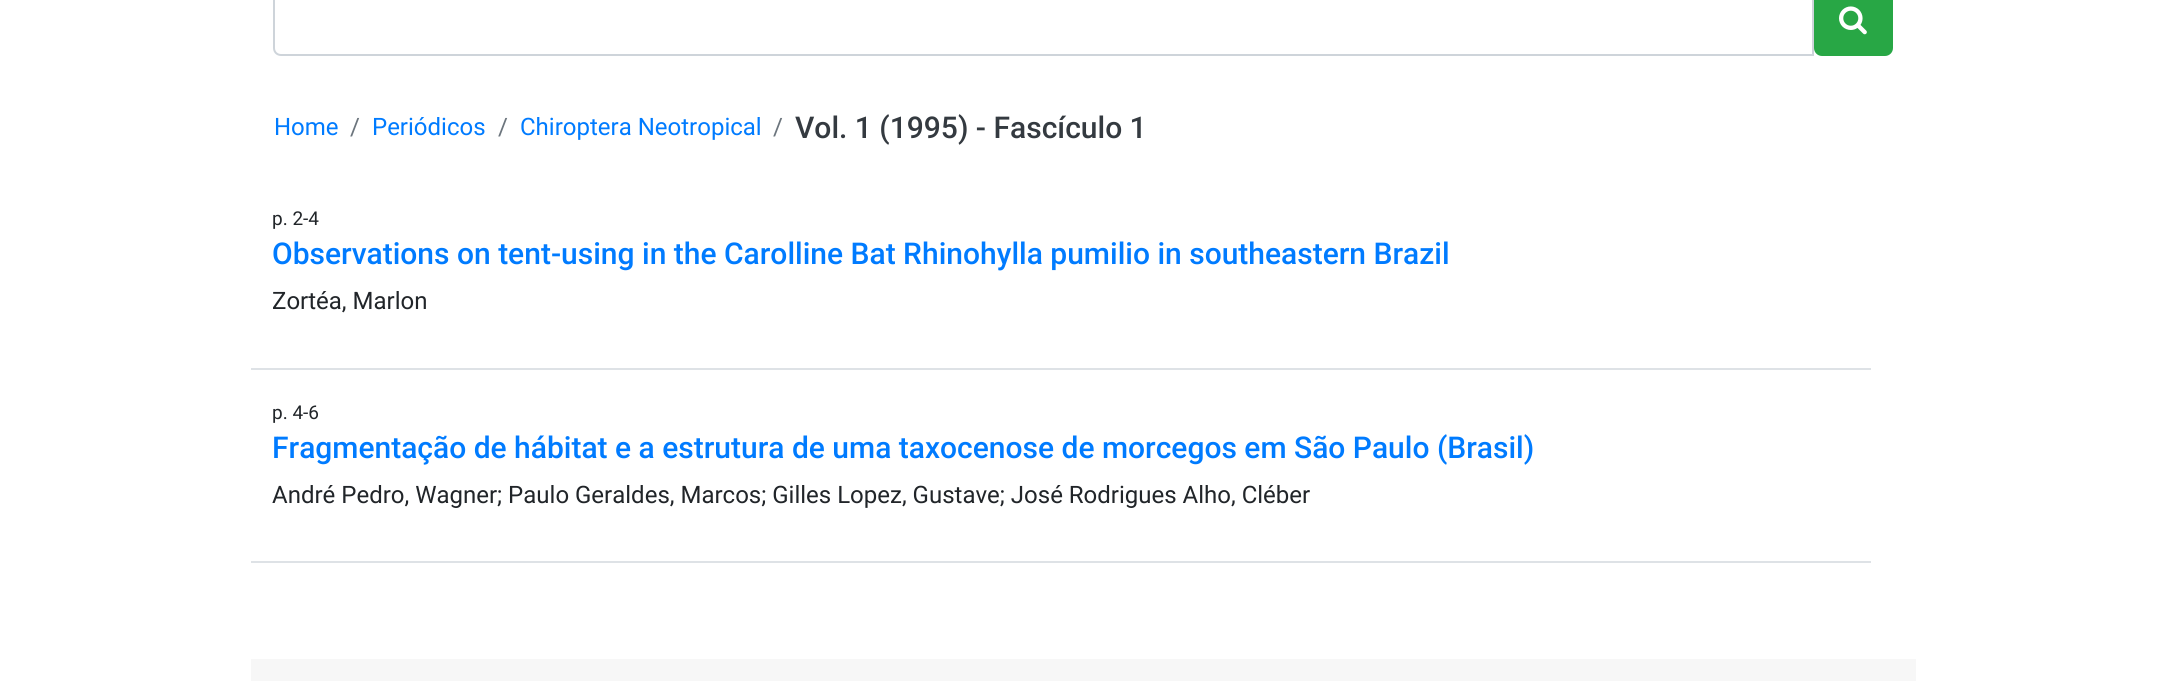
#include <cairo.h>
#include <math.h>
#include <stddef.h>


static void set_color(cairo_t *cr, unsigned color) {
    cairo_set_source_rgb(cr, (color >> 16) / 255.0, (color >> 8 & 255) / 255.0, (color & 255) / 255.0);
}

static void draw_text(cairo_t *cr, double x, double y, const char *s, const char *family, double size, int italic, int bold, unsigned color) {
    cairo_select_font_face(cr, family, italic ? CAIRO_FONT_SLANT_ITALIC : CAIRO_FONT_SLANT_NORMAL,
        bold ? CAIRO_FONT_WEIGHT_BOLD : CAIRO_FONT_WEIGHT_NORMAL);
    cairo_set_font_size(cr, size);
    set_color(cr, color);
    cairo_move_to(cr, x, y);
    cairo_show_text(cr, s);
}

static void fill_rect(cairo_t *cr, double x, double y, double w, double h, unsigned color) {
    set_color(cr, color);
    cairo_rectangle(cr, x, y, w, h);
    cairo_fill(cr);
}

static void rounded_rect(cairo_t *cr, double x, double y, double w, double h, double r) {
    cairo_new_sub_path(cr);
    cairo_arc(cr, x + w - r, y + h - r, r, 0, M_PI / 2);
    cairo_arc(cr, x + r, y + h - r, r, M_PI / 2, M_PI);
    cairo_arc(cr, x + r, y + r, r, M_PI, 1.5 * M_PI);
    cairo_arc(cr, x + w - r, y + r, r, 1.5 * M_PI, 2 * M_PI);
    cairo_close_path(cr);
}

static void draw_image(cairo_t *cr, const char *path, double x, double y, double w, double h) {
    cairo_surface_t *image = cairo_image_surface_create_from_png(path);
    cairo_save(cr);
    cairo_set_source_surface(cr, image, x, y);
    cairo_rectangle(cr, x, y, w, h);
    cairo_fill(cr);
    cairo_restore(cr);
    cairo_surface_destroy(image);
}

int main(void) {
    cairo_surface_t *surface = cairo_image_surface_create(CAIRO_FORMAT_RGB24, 2164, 681);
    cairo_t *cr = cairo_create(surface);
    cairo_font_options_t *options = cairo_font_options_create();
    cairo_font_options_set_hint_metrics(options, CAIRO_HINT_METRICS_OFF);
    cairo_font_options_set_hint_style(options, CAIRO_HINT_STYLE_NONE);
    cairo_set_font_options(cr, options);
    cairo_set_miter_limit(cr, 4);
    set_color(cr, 0xFFFFFF);
    cairo_paint(cr);
    cairo_new_path(cr);
    cairo_move_to(cr, 281, -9);
    cairo_line_to(cr, 1813, -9);
    cairo_line_to(cr, 1813, 55);
    cairo_line_to(cr, 281, 55);
    cairo_curve_to(cr, 277, 55, 274, 52, 274, 48);
    cairo_line_to(cr, 274, -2);
    cairo_curve_to(cr, 274, -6, 277, -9, 281, -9);
    cairo_close_path(cr);
    set_color(cr, 0xCED4DA);
    cairo_stroke(cr);
    set_color(cr, 0x28A745);
    rounded_rect(cr, 1815, -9, 77, 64, 7);
    cairo_fill_preserve(cr);
    cairo_stroke(cr);
    draw_image(cr, "assets/img1.png", 1839, 6, 28, 29);
    draw_text(cr, 274, 135, "Home", "Roboto", 24, 0, 0, 0x007BFF);
    draw_text(cr, 350, 135, "/", "Roboto", 24, 0, 0, 0x6C757D);
    draw_text(cr, 372, 135, "Periódicos", "Roboto", 24, 0, 0, 0x007BFF);
    draw_text(cr, 498, 135, "/", "Roboto", 24, 0, 0, 0x6C757D);
    draw_text(cr, 520, 135, "Chiroptera Neotropical", "Roboto", 24, 0, 0, 0x007BFF);
    draw_text(cr, 773, 135, "/", "Roboto", 24, 0, 0, 0x6C757D);
    draw_text(cr, 795, 138, "Vol. 1 (1995) - Fascículo 1", "Roboto Medium", 30, 0, 0, 0x343A40);
    fill_rect(cr, 251, 368, 1620, 2, 0xDEE2E6);
    draw_text(cr, 272, 225, "p. 2-4", "Roboto", 19, 0, 0, 0x212529);
    draw_text(cr, 272, 264, "Observations on tent-using in the Carolline Bat Rhinohylla pumilio in southeastern Brazil", "Roboto Medium", 30, 0, 0, 0x007BFF);
    draw_text(cr, 272, 309, "Zortéa, Marlon", "Roboto", 24, 0, 0, 0x212529);
    fill_rect(cr, 251, 561, 1620, 2, 0xDEE2E6);
    draw_text(cr, 272, 419, "p. 4-6", "Roboto", 19, 0, 0, 0x212529);
    draw_text(cr, 272, 458, "Fragmentação de hábitat e a estrutura de uma taxocenose de morcegos em São Paulo (Brasil)", "Roboto Medium", 30, 0, 0, 0x007BFF);
    draw_text(cr, 272, 503, "André Pedro, Wagner; Paulo Geraldes, Marcos; Gilles Lopez, Gustave; José Rodrigues Alho, Cléber", "Roboto", 24, 0, 0, 0x212529);
    fill_rect(cr, 251, 659, 1665, 22, 0xF7F7F7);
    cairo_surface_write_to_png(surface, "output.png");
    cairo_font_options_destroy(options);
    cairo_destroy(cr);
    cairo_surface_destroy(surface);
    return 0;
}
